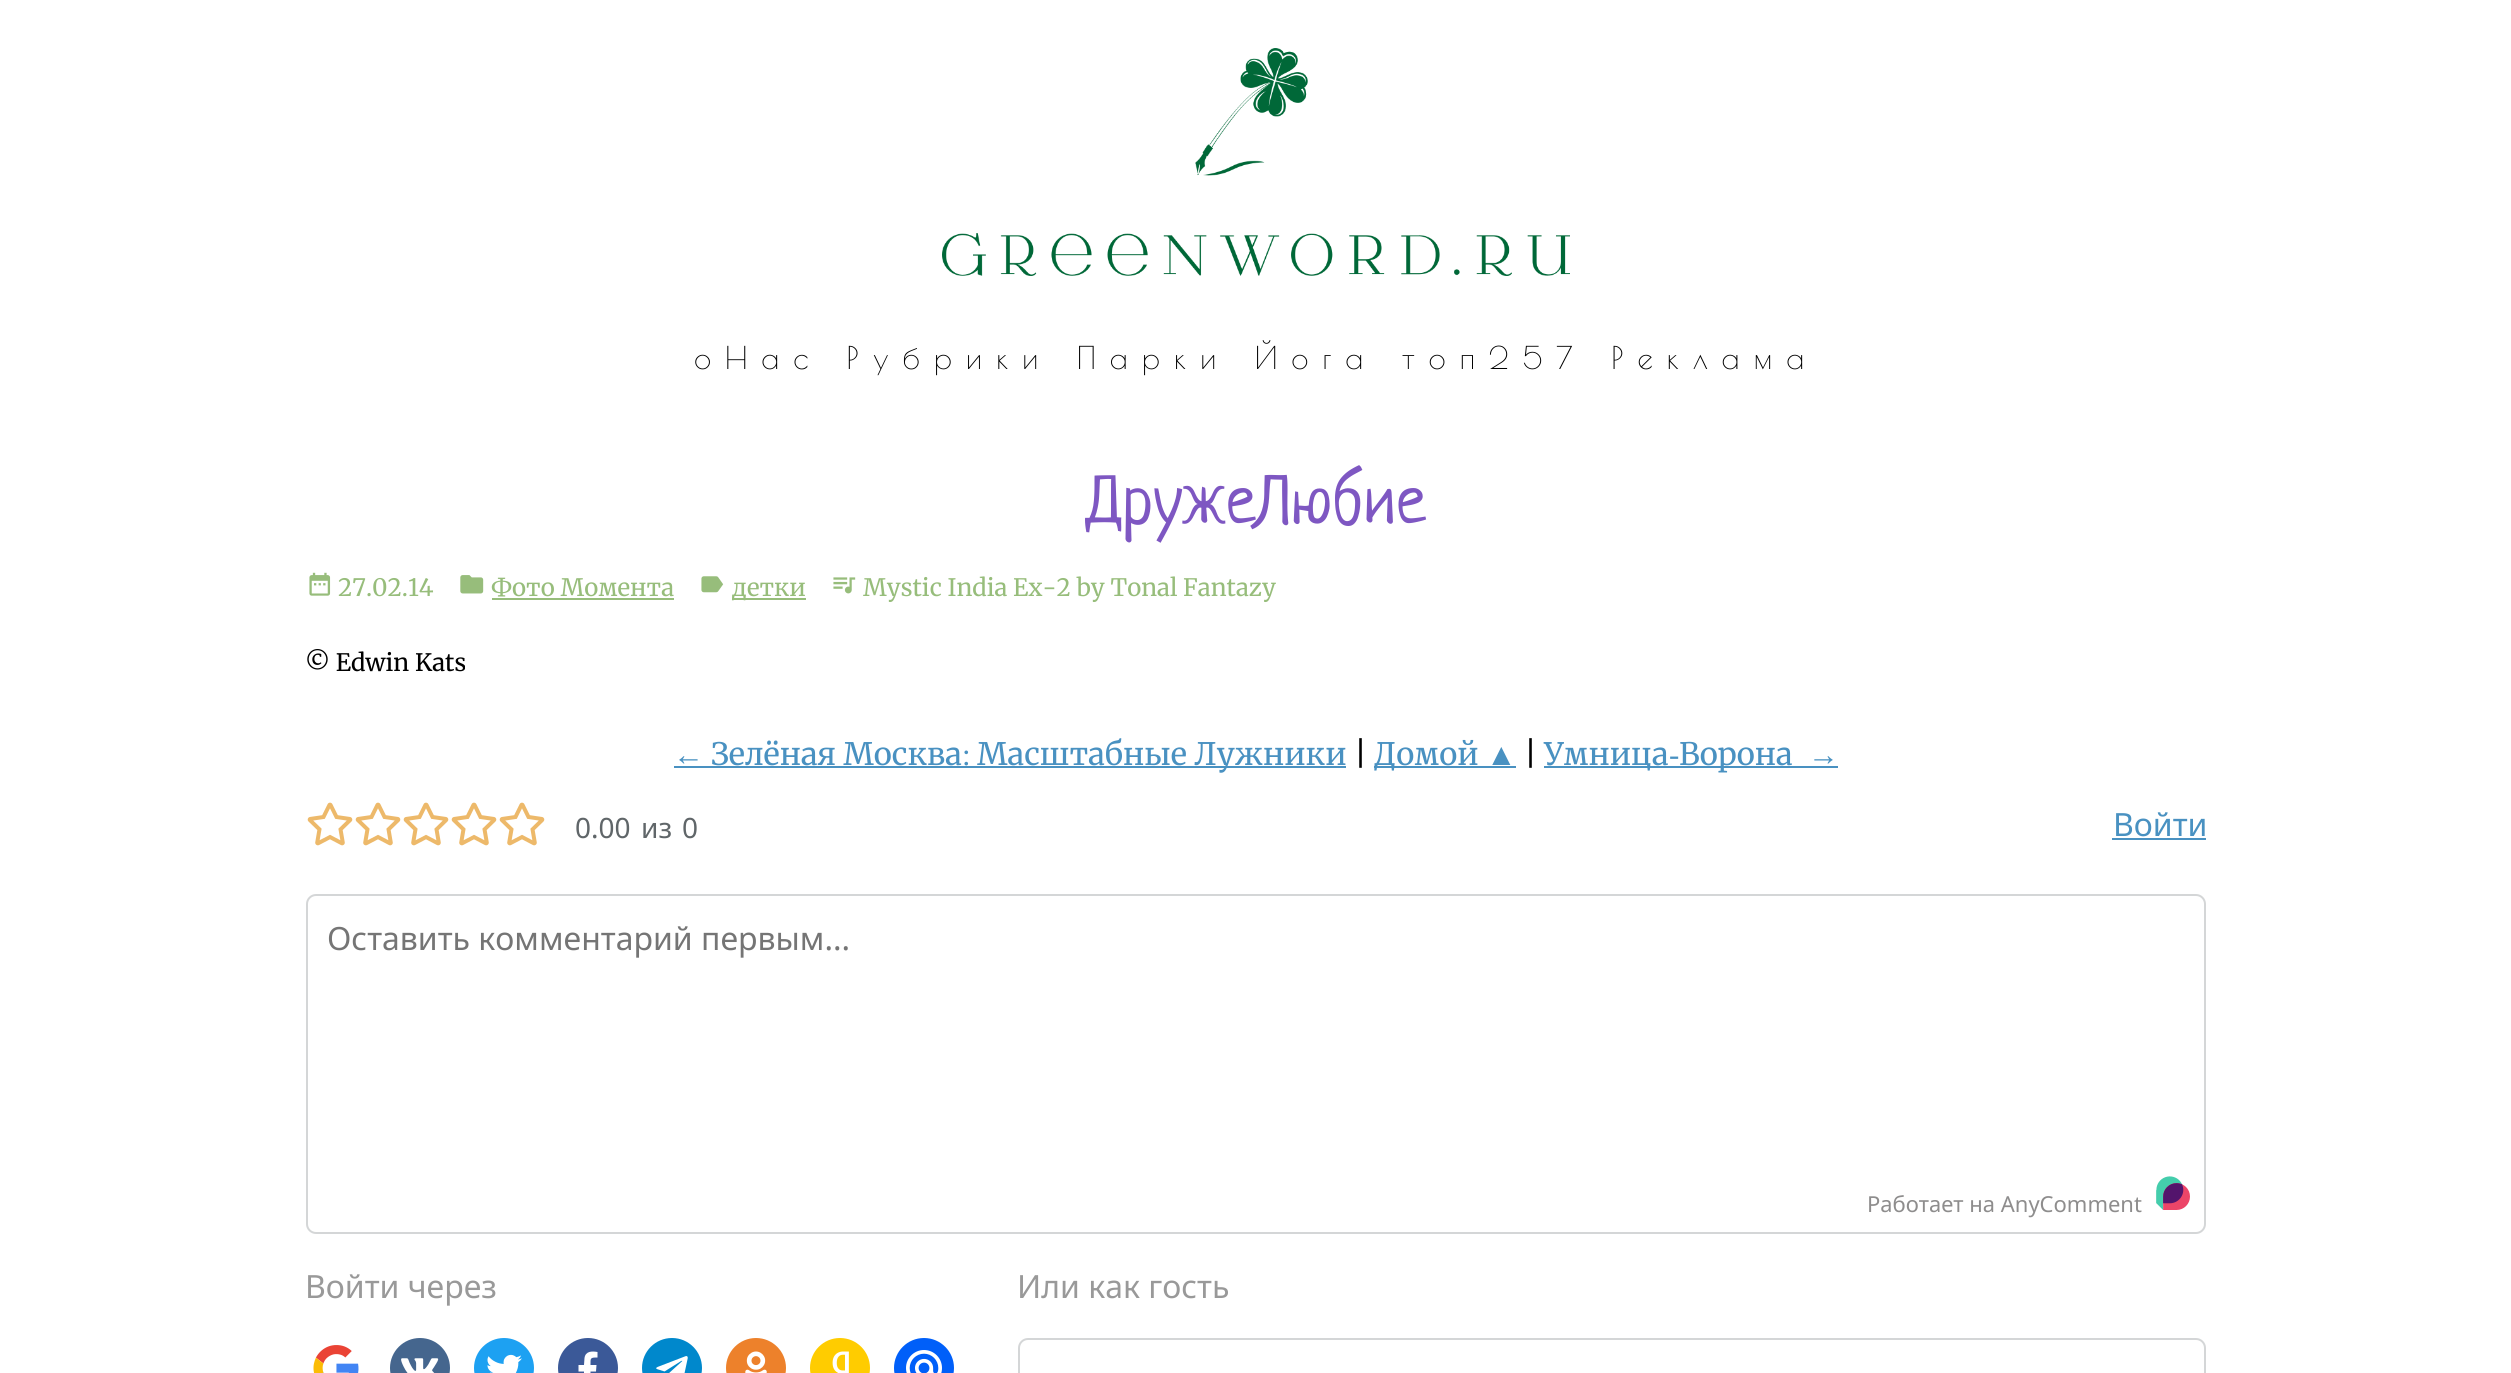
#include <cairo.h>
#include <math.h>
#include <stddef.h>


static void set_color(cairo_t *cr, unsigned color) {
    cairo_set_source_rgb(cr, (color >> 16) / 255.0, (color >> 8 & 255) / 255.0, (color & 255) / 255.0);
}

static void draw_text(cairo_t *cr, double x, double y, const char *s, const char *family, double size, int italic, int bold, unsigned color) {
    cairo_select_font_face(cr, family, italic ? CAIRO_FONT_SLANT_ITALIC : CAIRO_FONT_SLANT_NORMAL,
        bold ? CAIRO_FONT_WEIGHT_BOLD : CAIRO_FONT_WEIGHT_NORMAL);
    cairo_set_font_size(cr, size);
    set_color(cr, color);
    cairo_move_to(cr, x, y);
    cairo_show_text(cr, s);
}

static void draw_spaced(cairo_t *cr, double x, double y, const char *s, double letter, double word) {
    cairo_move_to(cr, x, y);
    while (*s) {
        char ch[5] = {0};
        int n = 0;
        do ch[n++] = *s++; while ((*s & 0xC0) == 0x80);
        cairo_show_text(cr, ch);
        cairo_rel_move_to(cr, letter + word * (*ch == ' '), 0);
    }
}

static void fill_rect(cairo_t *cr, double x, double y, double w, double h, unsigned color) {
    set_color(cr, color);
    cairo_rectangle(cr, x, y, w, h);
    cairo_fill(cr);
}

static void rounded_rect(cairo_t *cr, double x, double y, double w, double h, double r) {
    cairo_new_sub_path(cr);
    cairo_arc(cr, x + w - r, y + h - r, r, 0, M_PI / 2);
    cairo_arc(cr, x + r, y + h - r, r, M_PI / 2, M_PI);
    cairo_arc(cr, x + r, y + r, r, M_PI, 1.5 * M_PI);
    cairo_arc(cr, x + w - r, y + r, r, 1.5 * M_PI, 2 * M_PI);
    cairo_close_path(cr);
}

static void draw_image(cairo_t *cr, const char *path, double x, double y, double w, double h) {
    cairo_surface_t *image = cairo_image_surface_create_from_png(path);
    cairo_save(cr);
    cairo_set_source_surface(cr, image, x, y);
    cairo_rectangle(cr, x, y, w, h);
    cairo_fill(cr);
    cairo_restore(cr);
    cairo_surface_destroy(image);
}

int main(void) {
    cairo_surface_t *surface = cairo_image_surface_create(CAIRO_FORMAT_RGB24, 2511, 1373);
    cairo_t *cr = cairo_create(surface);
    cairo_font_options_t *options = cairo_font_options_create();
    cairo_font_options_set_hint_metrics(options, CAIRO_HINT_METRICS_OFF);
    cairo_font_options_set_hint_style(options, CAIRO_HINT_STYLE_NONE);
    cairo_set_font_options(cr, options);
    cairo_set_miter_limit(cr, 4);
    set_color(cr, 0xFFFFFF);
    cairo_paint(cr);
    draw_image(cr, "assets/img1.png", 942, 48, 628, 228);
    cairo_select_font_face(cr, "Poiret One", CAIRO_FONT_SLANT_NORMAL, CAIRO_FONT_WEIGHT_NORMAL);
    cairo_set_font_size(cr, 30.9);
    set_color(cr, 0x000000);
    draw_spaced(cr, 694, 369, "оНас Рубрики Парки Йога топ257 Реклама", 13.75, 0);
    draw_text(cr, 1085, 523, "ДружеЛюбие", "Neucha", 68.5, 0, 0, 0x7E57C2);
    draw_image(cr, "assets/img2.png", 309, 572, 22, 24);
    draw_text(cr, 338, 596, "27.02.14", "Merriweather Light", 24, 0, 0, 0x97BD7B);
    draw_image(cr, "assets/img3.png", 460, 575, 24, 19);
    draw_text(cr, 491, 596, "Фото Момента", "Merriweather Light", 24, 0, 0, 0x97BD7B);
    fill_rect(cr, 492, 598, 182, 2, 0x97BD7B);
    draw_image(cr, "assets/img4.png", 701, 576, 23, 17);
    fill_rect(cr, 732, 598, 74, 2, 0x97BD7B);
    draw_text(cr, 732, 596, "детки", "Merriweather Light", 24, 0, 0, 0x97BD7B);
    draw_image(cr, "assets/img5.png", 833, 577, 23, 17);
    draw_text(cr, 863, 596, "Mystic India Ex-2 by Tonal Fantazy", "Merriweather Light", 24, 0, 0, 0x97BD7B);
    draw_text(cr, 305, 671, "© Edwin Kats", "Merriweather Light", 24, 0, 0, 0x000000);
    draw_text(cr, 673, 765, "←", "Liberation Serif", 30.9, 0, 0, 0x4991C1);
    fill_rect(cr, 674, 766, 672, 2, 0x4991C1);
    draw_text(cr, 711, 765, "Зелёная Москва", "Merriweather Light", 30.9, 0, 0, 0x4991C1);
    draw_text(cr, 962, 765, ":", "Liberation Serif", 30.9, 0, 0, 0x4991C1);
    draw_text(cr, 977, 765, "Масштабные Лужники", "Merriweather Light", 30.9, 0, 0, 0x4991C1);
    draw_text(cr, 1354, 765, "|", "Merriweather Light", 30.9, 0, 0, 0x000000);
    fill_rect(cr, 1374, 766, 142, 2, 0x4991C1);
    draw_text(cr, 1374, 765, "Домой", "Merriweather Light", 30.9, 0, 0, 0x4991C1);
    draw_text(cr, 1486, 765, "▲", "Liberation Serif", 30.9, 0, 0, 0x4991C1);
    draw_text(cr, 1524, 765, "|", "Merriweather Light", 30.9, 0, 0, 0x000000);
    fill_rect(cr, 1544, 766, 294, 2, 0x4991C1);
    draw_text(cr, 1544, 765, "Умница", "Merriweather Light", 30.9, 0, 0, 0x4991C1);
    draw_text(cr, 1669, 765, "-", "Liberation Serif", 30.9, 0, 0, 0x4991C1);
    draw_text(cr, 1679, 765, "Ворона", "Merriweather Light", 30.9, 0, 0, 0x4991C1);
    draw_text(cr, 1808, 765, "→", "Liberation Serif", 30.9, 0, 0, 0x4991C1);
    draw_image(cr, "assets/img6.png", 307, 802, 46, 44);
    draw_image(cr, "assets/img6.png", 355, 802, 46, 44);
    draw_image(cr, "assets/img6.png", 403, 802, 46, 44);
    draw_image(cr, "assets/img6.png", 451, 802, 46, 44);
    draw_image(cr, "assets/img6.png", 499, 802, 46, 44);
    draw_text(cr, 575, 838, "0.00", "Noto Sans", 28, 0, 0, 0x606669);
    draw_text(cr, 641, 838, "из", "Noto Sans", 28, 0, 0, 0x606669);
    draw_text(cr, 682, 838, "0", "Noto Sans", 28, 0, 0, 0x606669);
    draw_text(cr, 2113, 836, "Войти", "Noto Sans", 32, 0, 0, 0x4991C1);
    fill_rect(cr, 2112, 838, 94, 2, 0x4991C1);
    rounded_rect(cr, 307, 895, 1898, 338, 9);
    set_color(cr, 0xD4D6D7);
    cairo_stroke(cr);
    draw_text(cr, 327, 950, "Оставить комментарий первым...", "Noto Sans", 32, 0, 0, 0x757575);
    draw_text(cr, 1867, 1212, "Работает на AnyComment", "Noto Sans", 22, 0, 0, 0x8E8D8D);
    draw_image(cr, "assets/img7.png", 2156, 1176, 34, 34);
    draw_text(cr, 305, 1298, "Войти через", "Noto Sans", 32, 0, 0, 0x999999);
    draw_image(cr, "assets/img8.png", 313, 1345, 46, 28);
    draw_image(cr, "assets/img9.png", 390, 1338, 60, 35);
    draw_image(cr, "assets/img10.png", 474, 1338, 60, 35);
    set_color(cr, 0x3B5998);
    cairo_arc(cr, 588, 1368, 30, 0, 2 * M_PI);
    cairo_fill(cr);
    set_color(cr, 0xFFFFFF);
    cairo_new_path(cr);
    cairo_move_to(cr, 584, 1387.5);
    cairo_line_to(cr, 590.5, 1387.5);
    cairo_line_to(cr, 590.5, 1371.5);
    cairo_line_to(cr, 596, 1371.5);
    cairo_line_to(cr, 596.5, 1365);
    cairo_line_to(cr, 590.5, 1365);
    cairo_curve_to(cr, 590.5, 1358, 590, 1357.5, 597.5, 1357.5);
    cairo_line_to(cr, 597.5, 1352);
    cairo_curve_to(cr, 592, 1351, 585.5, 1351, 584.5, 1358);
    cairo_line_to(cr, 584, 1365);
    cairo_line_to(cr, 578.5, 1365);
    cairo_line_to(cr, 578.5, 1371.5);
    cairo_line_to(cr, 584, 1371.5);
    cairo_close_path(cr);
    cairo_fill(cr);
    draw_image(cr, "assets/img11.png", 642, 1338, 60, 35);
    draw_image(cr, "assets/img12.png", 726, 1338, 60, 35);
    draw_image(cr, "assets/img13.png", 810, 1338, 60, 35);
    draw_image(cr, "assets/img14.png", 894, 1338, 60, 35);
    draw_text(cr, 1017, 1298, "Или как гость", "Noto Sans", 32, 0, 0, 0x999999);
    rounded_rect(cr, 1019, 1339, 1186, 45, 9);
    set_color(cr, 0xD4D6D7);
    cairo_stroke(cr);
    cairo_surface_write_to_png(surface, "output.png");
    cairo_font_options_destroy(options);
    cairo_destroy(cr);
    cairo_surface_destroy(surface);
    return 0;
}
